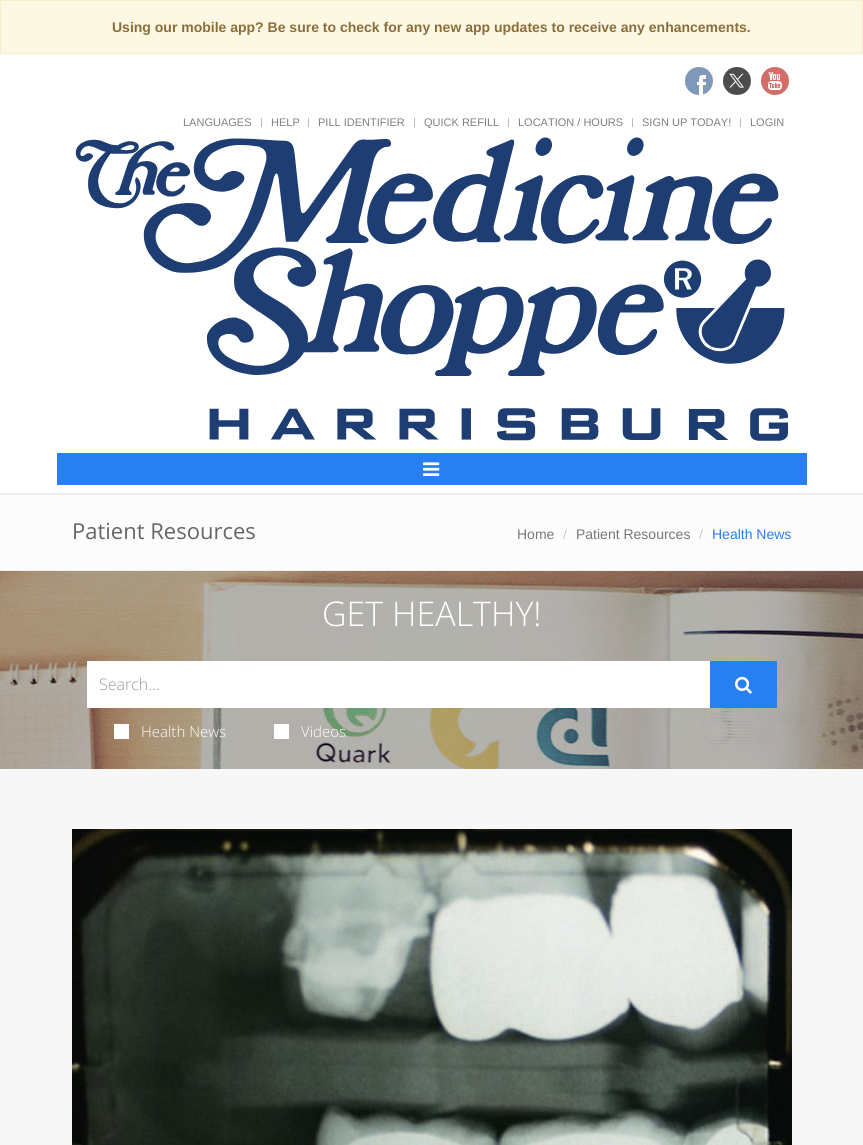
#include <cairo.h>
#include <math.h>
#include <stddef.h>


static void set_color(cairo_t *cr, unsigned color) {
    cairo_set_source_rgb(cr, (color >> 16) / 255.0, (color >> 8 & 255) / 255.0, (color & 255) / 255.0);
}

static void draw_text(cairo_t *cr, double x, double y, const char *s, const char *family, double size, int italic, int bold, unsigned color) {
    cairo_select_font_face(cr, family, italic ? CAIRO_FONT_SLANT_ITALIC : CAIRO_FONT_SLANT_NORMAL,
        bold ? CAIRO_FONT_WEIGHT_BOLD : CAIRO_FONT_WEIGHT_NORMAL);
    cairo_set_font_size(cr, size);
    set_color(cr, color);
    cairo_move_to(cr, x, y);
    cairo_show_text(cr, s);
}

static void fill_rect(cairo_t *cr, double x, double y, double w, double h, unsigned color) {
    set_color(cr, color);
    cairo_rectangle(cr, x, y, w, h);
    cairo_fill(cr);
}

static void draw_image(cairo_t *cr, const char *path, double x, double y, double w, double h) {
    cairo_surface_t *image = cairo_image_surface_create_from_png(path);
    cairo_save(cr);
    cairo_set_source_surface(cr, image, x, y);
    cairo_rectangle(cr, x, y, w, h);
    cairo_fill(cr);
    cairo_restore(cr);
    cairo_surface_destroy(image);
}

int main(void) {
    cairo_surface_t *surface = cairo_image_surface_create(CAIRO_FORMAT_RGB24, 863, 1145);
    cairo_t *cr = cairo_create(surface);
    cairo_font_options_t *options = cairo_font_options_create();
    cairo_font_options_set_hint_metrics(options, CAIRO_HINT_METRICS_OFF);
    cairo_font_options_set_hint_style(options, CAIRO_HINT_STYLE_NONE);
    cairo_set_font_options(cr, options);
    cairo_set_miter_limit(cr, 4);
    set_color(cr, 0xFFFFFF);
    cairo_paint(cr);
    set_color(cr, 0xFCF8E3);
    cairo_rectangle(cr, 0.5, 0.5, 862, 53);
    cairo_fill_preserve(cr);
    set_color(cr, 0xFAEBCC);
    cairo_set_line_width(cr, 1);
    cairo_stroke(cr);
    draw_text(cr, 112, 32, "Using our mobile app? Be sure to check for any new app updates to receive any enhancements.", "Liberation Sans", 14, 0, 1, 0x8A6D3B);
    fill_rect(cr, 0, 493, 863, 2, 0xEEEEEE);
    draw_image(cr, "assets/img1.png", 685, 67, 28, 28);
    draw_image(cr, "assets/img2.png", 723, 67, 28, 28);
    draw_image(cr, "assets/img3.png", 761, 67, 28, 28);
    draw_text(cr, 183, 126, "LANGUAGES", "Liberation Sans", 11, 0, 0, 0x7C8082);
    fill_rect(cr, 261, 118, 1, 9, 0xBBBBBB);
    draw_text(cr, 271, 126, "HELP", "Liberation Sans", 11, 0, 0, 0x7C8082);
    fill_rect(cr, 308, 118, 1, 9, 0xBBBBBB);
    draw_text(cr, 318, 126, "PILL IDENTIFIER", "Liberation Sans", 11, 0, 0, 0x7C8082);
    fill_rect(cr, 414, 118, 1, 9, 0xBBBBBB);
    draw_text(cr, 424, 126, "QUICK REFILL", "Liberation Sans", 11, 0, 0, 0x7C8082);
    fill_rect(cr, 508, 118, 1, 9, 0xBBBBBB);
    draw_text(cr, 518, 126, "LOCATION / HOURS", "Liberation Sans", 11, 0, 0, 0x7C8082);
    fill_rect(cr, 632, 118, 1, 9, 0xBBBBBB);
    draw_text(cr, 642, 126, "SIGN UP TODAY!", "Liberation Sans", 11, 0, 0, 0x7C8082);
    fill_rect(cr, 740, 118, 1, 9, 0xBBBBBB);
    draw_text(cr, 750, 126, "LOGIN", "Liberation Sans", 11, 0, 0, 0x7C8082);
    draw_image(cr, "assets/img4.png", 75, 137, 713, 304);
    fill_rect(cr, 57, 453, 750, 32, 0x287FF0);
    draw_image(cr, "assets/img5.png", 423, 462, 17, 14);
    draw_image(cr, "assets/img6.png", 0, 495, 863, 75);
    fill_rect(cr, 0, 570, 863, 1, 0xEEEEEE);
    draw_text(cr, 72, 539, "Patient Resources", "Open Sans", 22, 0, 0, 0x666666);
    draw_text(cr, 517, 539, "Home", "Liberation Sans", 14, 0, 0, 0x777777);
    draw_text(cr, 563, 539, "/", "Liberation Sans", 14, 0, 0, 0xCCCCCC);
    draw_text(cr, 576, 539, "Patient Resources", "Liberation Sans", 14, 0, 0, 0x777777);
    draw_text(cr, 699, 539, "/", "Liberation Sans", 14, 0, 0, 0xCCCCCC);
    draw_text(cr, 712, 539, "Health News", "Liberation Sans", 14, 0, 0, 0x287FF0);
    draw_image(cr, "assets/img7.png", 0, 571, 863, 198);
    draw_text(cr, 322, 626, "GET HEALTHY!", "Open Sans Light", 34, 0, 0, 0xFFFFFF);
    fill_rect(cr, 87, 661, 623, 47, 0xFFFFFF);
    draw_text(cr, 99, 690, "Search...", "Open Sans Light", 16, 0, 0, 0x999999);
    fill_rect(cr, 710, 661, 67, 47, 0x287FF0);
    draw_image(cr, "assets/img8.png", 735, 676, 17, 18);
    fill_rect(cr, 114, 724, 15, 15, 0xFFFFFF);
    draw_text(cr, 141, 737, "Health News", "Open Sans Light", 15, 0, 0, 0xFFFFFF);
    fill_rect(cr, 274, 724, 15, 15, 0xFFFFFF);
    draw_text(cr, 301, 737, "Videos", "Open Sans Light", 15, 0, 0, 0xFFFFFF);
    fill_rect(cr, 0, 769, 863, 376, 0xF7F7F7);
    draw_image(cr, "assets/img9.png", 72, 829, 720, 316);
    cairo_surface_write_to_png(surface, "output.png");
    cairo_font_options_destroy(options);
    cairo_destroy(cr);
    cairo_surface_destroy(surface);
    return 0;
}
